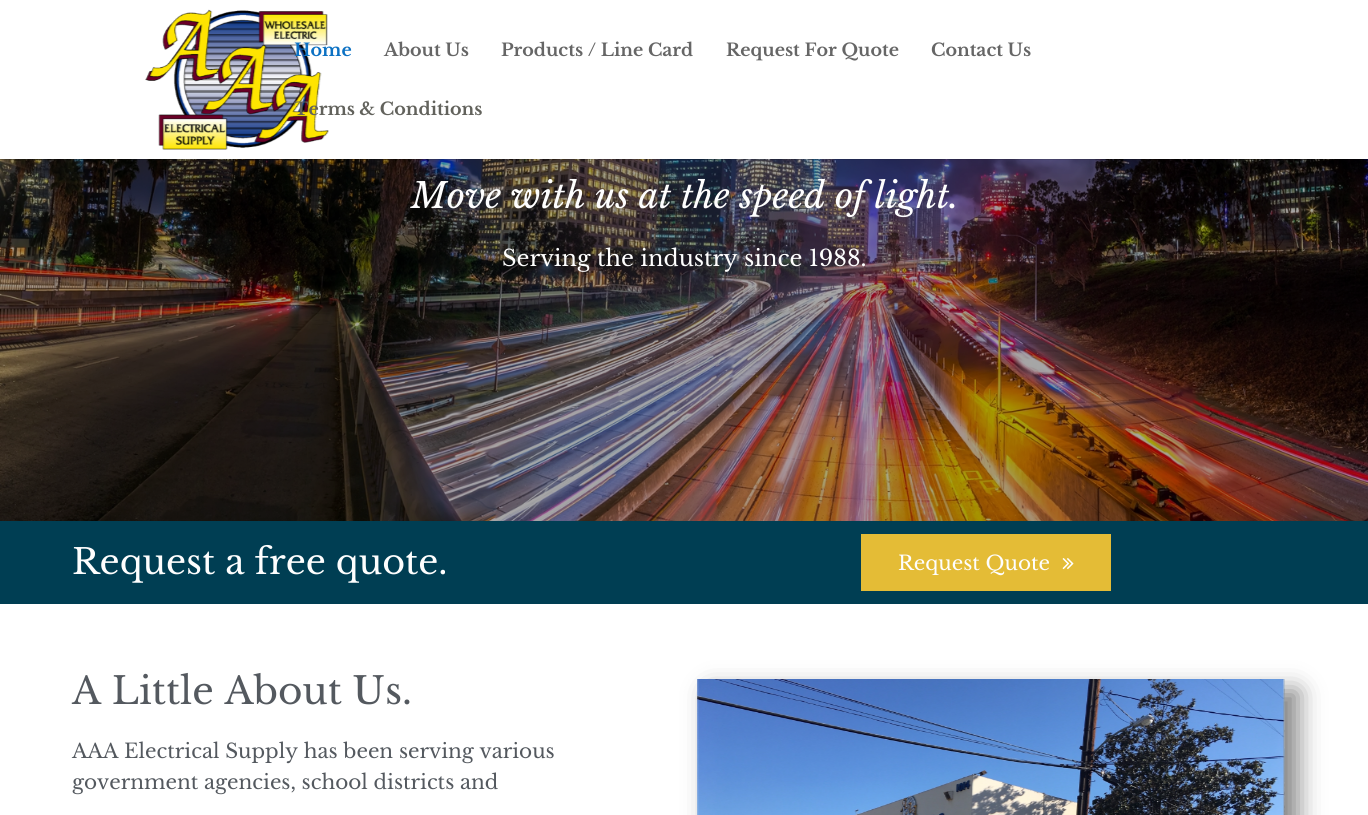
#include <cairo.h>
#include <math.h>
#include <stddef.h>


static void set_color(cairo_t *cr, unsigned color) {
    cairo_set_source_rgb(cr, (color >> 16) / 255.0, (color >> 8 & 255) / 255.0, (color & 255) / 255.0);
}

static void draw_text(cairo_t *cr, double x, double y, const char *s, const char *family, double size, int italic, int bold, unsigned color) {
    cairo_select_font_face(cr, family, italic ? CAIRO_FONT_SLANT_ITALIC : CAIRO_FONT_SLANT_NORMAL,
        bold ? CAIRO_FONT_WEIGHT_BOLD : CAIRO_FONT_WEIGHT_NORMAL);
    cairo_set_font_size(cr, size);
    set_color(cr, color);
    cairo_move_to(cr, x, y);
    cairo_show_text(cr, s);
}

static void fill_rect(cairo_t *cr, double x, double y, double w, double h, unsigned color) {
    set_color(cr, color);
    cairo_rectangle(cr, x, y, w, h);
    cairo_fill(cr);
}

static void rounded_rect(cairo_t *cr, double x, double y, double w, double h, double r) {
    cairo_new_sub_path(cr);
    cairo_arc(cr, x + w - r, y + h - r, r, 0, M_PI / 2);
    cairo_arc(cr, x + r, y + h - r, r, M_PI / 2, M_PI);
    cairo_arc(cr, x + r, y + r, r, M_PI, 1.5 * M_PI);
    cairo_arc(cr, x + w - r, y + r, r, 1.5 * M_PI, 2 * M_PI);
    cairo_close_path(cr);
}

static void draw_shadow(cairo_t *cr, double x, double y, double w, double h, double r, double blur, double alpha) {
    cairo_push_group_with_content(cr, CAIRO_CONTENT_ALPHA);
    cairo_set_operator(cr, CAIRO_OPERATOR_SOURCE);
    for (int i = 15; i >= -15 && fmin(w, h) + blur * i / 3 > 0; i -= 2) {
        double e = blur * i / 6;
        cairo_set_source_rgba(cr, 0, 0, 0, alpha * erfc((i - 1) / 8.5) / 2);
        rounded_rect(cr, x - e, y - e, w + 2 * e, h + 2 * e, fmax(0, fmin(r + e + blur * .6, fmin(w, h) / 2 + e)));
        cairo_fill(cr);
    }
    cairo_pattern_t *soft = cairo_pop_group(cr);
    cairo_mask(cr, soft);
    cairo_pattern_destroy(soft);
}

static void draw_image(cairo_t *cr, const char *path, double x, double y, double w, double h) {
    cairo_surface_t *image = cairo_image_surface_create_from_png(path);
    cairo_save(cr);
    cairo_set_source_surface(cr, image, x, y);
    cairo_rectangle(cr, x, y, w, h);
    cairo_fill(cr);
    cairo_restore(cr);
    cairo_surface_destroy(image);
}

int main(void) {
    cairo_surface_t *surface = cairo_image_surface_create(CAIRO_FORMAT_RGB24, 1368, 815);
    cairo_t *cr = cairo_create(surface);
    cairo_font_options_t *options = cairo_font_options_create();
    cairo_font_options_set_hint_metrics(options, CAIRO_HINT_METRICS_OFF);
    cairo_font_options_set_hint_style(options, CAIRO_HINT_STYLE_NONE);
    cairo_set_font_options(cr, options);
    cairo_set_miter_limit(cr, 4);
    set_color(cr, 0xFFFFFF);
    cairo_paint(cr);
    draw_image(cr, "assets/img2.png", 0, 159, 1368, 362);
    cairo_set_source_rgba(cr, 0, 0, 0, 0.1);
    cairo_new_path(cr);
    cairo_move_to(cr, 0, 159);
    cairo_line_to(cr, 0, 160);
    cairo_line_to(cr, 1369, 160);
    cairo_line_to(cr, 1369, 1);
    cairo_line_to(cr, 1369, 159);
    cairo_close_path(cr);
    cairo_fill(cr);
    draw_image(cr, "assets/img1.png", 145, 9, 184, 141);
    draw_text(cr, 294, 56, "Home", "Libre Baskerville", 17.5, 0, 1, 0x0C71C3);
    draw_text(cr, 384, 56, "About Us", "Libre Baskerville", 17.5, 0, 1, 0x666666);
    draw_text(cr, 501, 56, "Products / Line Card", "Libre Baskerville", 17.5, 0, 1, 0x666666);
    draw_text(cr, 726, 56, "Request For Quote", "Libre Baskerville", 17.5, 0, 1, 0x666666);
    draw_text(cr, 931, 56, "Contact Us", "Libre Baskerville", 17.5, 0, 1, 0x666666);
    draw_text(cr, 294, 115, "Terms & Conditions", "Libre Baskerville", 17.5, 0, 1, 0x62625C);
    draw_text(cr, 411, 208, "Move with us at the speed of light.", "Libre Baskerville", 35, 1, 0, 0xFEFEFE);
    draw_text(cr, 502, 266, "Serving the industry since 1988.", "Libre Baskerville", 22.5, 0, 0, 0xFEFEFE);
    fill_rect(cr, 0, 521, 1368, 83, 0x003E53);
    draw_text(cr, 72, 574, "Request a free quote.", "Libre Baskerville", 35, 0, 0, 0xFEFEFE);
    fill_rect(cr, 861, 534, 250, 57, 0xE4BC36);
    draw_text(cr, 898, 570, "Request Quote", "Libre Baskerville", 20, 0, 0, 0xFEFEFE);
    draw_image(cr, "assets/img3.png", 1062, 558, 12, 12);
    draw_text(cr, 72, 704, "A Little About Us.", "Libre Baskerville", 37.5, 0, 0, 0x54595F);
    draw_text(cr, 72, 758, "AAA Electrical Supply has been serving various", "Libre Baskerville", 20, 0, 0, 0x54595F);
    draw_text(cr, 72, 789, "government agencies, school districts and", "Libre Baskerville", 20, 0, 0, 0x54595F);
    set_color(cr, 0x000000);
    draw_shadow(cr, 710, 691, 588, 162, 0, 12.5, 0.5);
    draw_image(cr, "assets/img5.png", 697, 680, 1, 135);
    draw_image(cr, "assets/img4.png", 697, 679, 588, 136);
    draw_image(cr, "assets/img6.png", 1284, 679, 1, 136);
    cairo_surface_write_to_png(surface, "output.png");
    cairo_font_options_destroy(options);
    cairo_destroy(cr);
    cairo_surface_destroy(surface);
    return 0;
}
